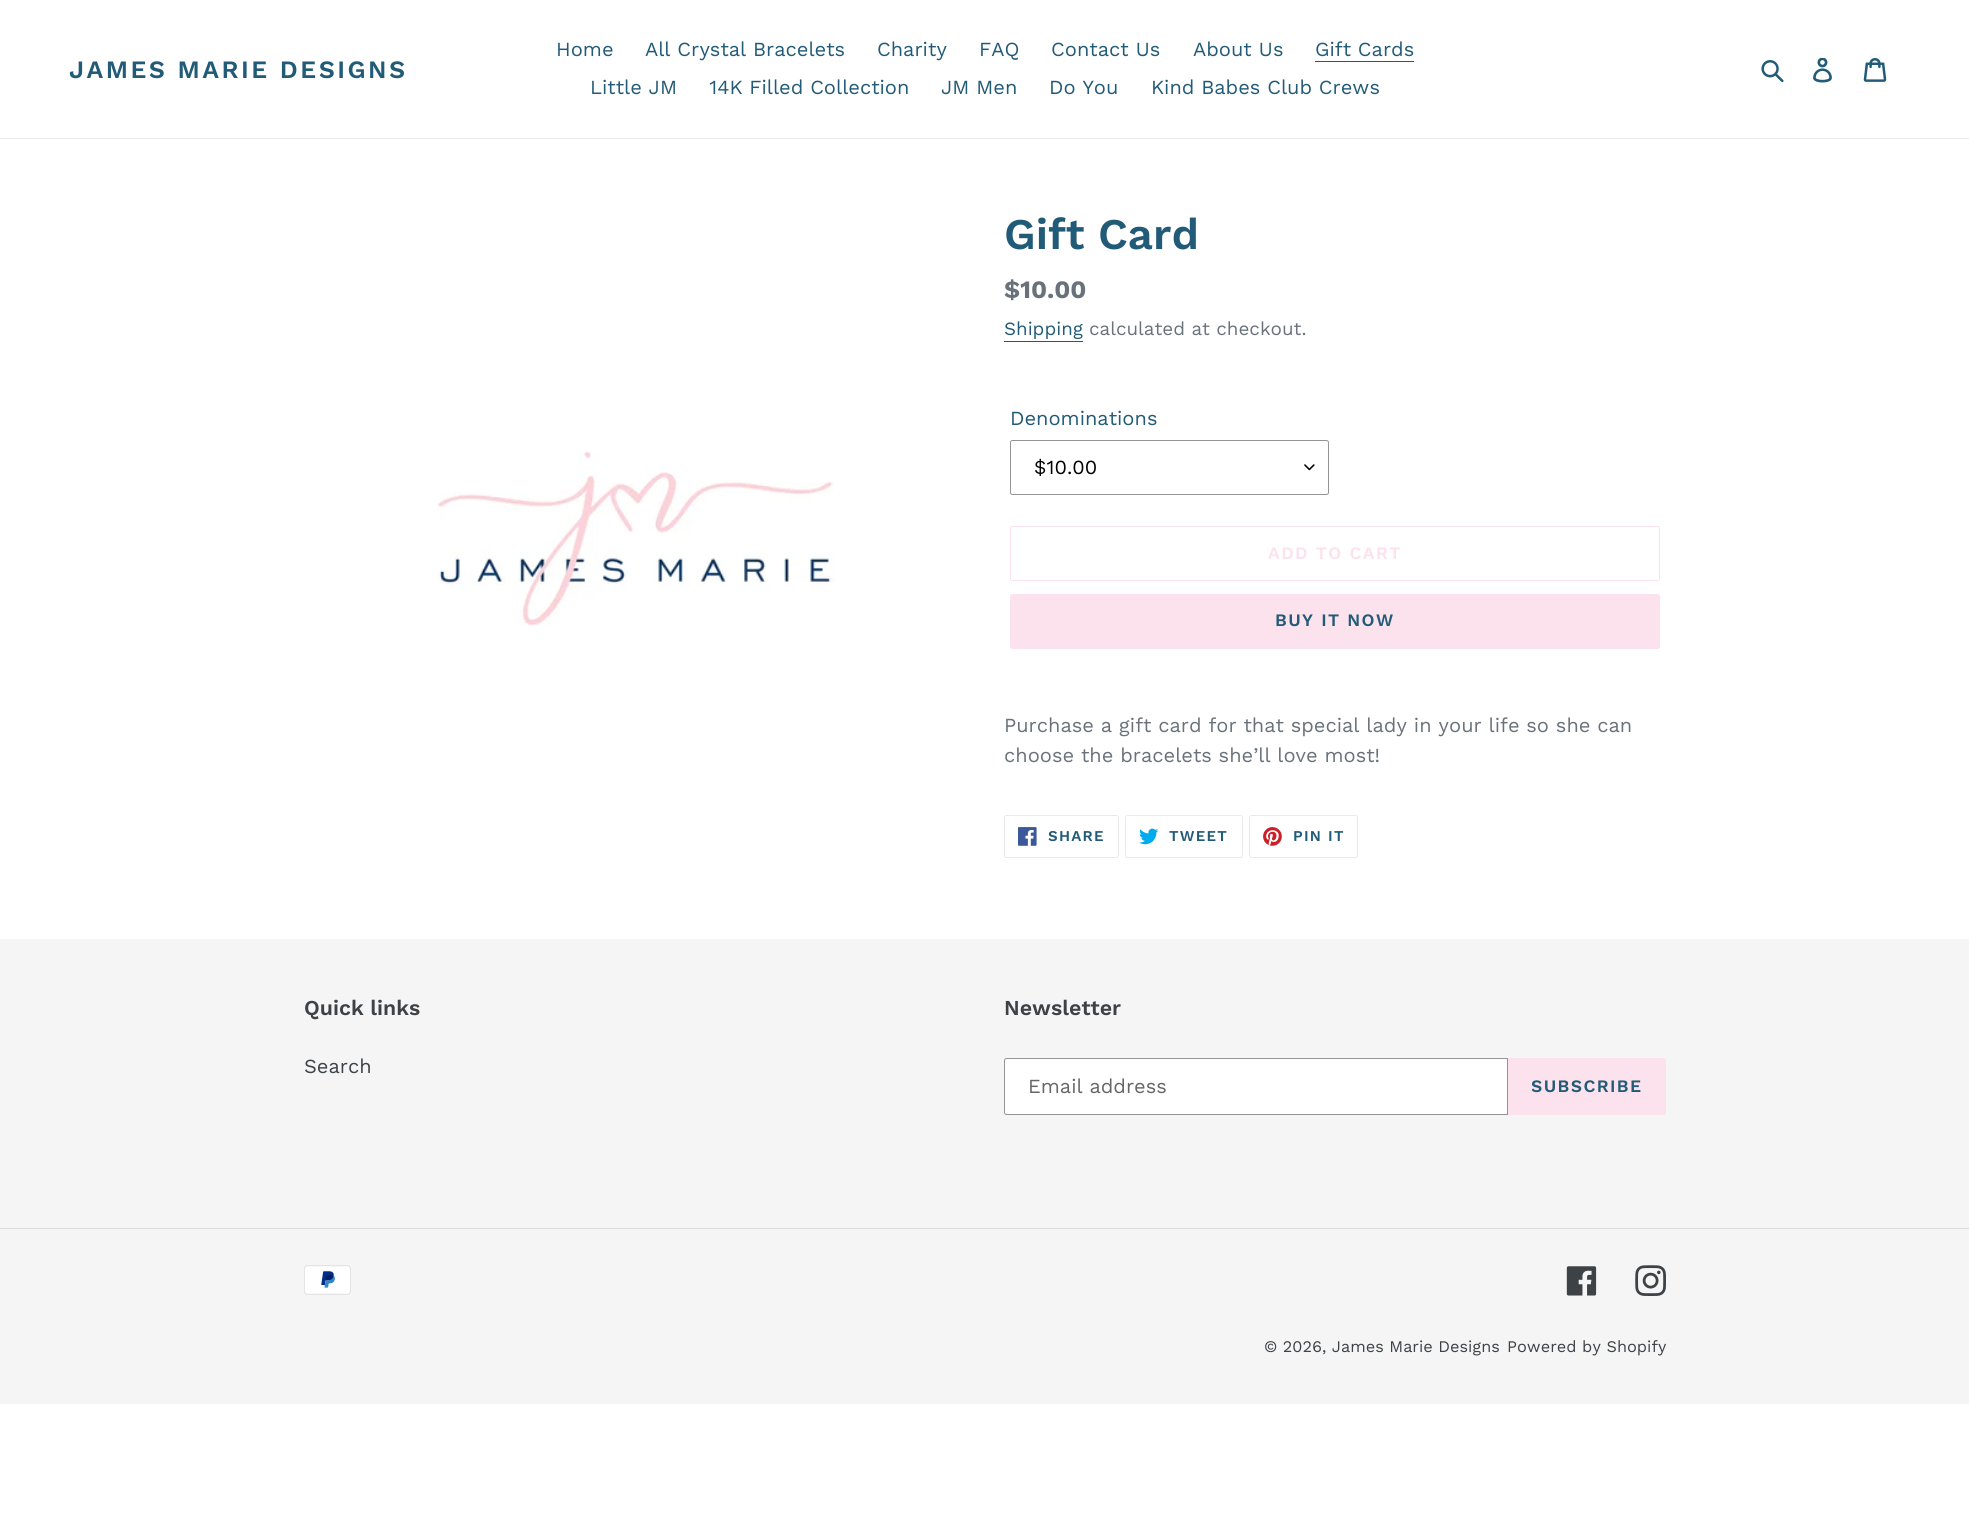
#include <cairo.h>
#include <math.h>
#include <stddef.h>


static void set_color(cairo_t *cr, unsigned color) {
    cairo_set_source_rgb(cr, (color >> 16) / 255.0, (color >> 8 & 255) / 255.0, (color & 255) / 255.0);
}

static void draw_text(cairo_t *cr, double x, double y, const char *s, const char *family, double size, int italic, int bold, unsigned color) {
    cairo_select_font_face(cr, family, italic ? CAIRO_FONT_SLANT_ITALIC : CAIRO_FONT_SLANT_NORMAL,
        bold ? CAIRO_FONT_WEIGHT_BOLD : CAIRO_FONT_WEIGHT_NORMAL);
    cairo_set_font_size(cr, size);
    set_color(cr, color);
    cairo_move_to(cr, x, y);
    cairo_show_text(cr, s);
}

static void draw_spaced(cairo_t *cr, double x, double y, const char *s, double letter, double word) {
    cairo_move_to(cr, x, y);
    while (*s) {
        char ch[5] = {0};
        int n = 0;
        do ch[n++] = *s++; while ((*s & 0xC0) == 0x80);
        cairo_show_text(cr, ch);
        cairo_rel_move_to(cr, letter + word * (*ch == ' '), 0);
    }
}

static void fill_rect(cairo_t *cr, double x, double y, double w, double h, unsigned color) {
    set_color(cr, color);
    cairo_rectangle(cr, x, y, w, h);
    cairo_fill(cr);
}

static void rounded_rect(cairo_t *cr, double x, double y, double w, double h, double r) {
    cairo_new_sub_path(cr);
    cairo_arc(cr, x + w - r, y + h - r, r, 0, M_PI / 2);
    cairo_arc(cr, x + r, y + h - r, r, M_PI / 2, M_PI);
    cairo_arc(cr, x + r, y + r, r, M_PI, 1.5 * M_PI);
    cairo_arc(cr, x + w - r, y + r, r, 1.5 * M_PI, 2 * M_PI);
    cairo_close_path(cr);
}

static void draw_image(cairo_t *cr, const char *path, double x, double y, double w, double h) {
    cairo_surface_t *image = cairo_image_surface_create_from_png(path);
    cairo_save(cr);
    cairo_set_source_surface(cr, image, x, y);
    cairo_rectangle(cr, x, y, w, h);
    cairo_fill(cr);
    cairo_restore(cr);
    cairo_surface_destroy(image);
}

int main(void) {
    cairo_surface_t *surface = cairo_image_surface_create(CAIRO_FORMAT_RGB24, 1969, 1535);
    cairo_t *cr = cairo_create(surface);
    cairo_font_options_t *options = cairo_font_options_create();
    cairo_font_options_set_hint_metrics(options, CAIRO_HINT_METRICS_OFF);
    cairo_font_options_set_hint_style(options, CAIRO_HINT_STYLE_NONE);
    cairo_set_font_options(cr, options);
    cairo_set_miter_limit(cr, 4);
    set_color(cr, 0xFFFFFF);
    cairo_paint(cr);
    fill_rect(cr, 0, 138, 1969, 1, 0xE8E9EB);
    cairo_select_font_face(cr, "Work Sans SemiBold", CAIRO_FONT_SLANT_NORMAL, CAIRO_FONT_WEIGHT_NORMAL);
    cairo_set_font_size(cr, 25);
    set_color(cr, 0x225B77);
    draw_spaced(cr, 69, 78, "JAMES MARIE DESIGNS", 2.5, 0);
    draw_text(cr, 556, 56, "Home", "Work Sans", 20, 0, 0, 0x225B77);
    draw_text(cr, 645, 56, "All Crystal Bracelets", "Work Sans", 20, 0, 0, 0x225B77);
    draw_text(cr, 877, 56, "Charity", "Work Sans", 20, 0, 0, 0x225B77);
    draw_text(cr, 979, 56, "FAQ", "Work Sans", 20, 0, 0, 0x225B77);
    draw_text(cr, 1051, 56, "Contact Us", "Work Sans", 20, 0, 0, 0x225B77);
    draw_text(cr, 1193, 56, "About Us", "Work Sans", 20, 0, 0, 0x225B77);
    draw_text(cr, 1315, 56, "Gift Cards", "Work Sans", 20, 0, 0, 0x225B77);
    fill_rect(cr, 1315, 61, 99, 1, 0x225B77);
    draw_text(cr, 590, 94, "Little JM", "Work Sans", 20, 0, 0, 0x225B77);
    draw_text(cr, 709, 94, "14K Filled Collection", "Work Sans", 20, 0, 0, 0x225B77);
    draw_text(cr, 941, 94, "JM Men", "Work Sans", 20, 0, 0, 0x225B77);
    draw_text(cr, 1049, 94, "Do You", "Work Sans", 20, 0, 0, 0x225B77);
    draw_text(cr, 1151, 94, "Kind Babes Club Crews", "Work Sans", 20, 0, 0, 0x225B77);
    draw_image(cr, "assets/img1.png", 1761, 60, 23, 23);
    draw_image(cr, "assets/img2.png", 1813, 58, 19, 25);
    draw_image(cr, "assets/img3.png", 1863, 58, 24, 24);
    draw_image(cr, "assets/img4.png", 437, 451, 397, 175);
    draw_text(cr, 1004, 249, "Gift Card", "Work Sans SemiBold", 43.75, 0, 0, 0x225B77);
    draw_text(cr, 1004, 298, "$10.00", "Work Sans", 25, 0, 1, 0x69727B);
    draw_text(cr, 1004, 335, "Shipping", "Work Sans", 18.75, 0, 0, 0x225B77);
    fill_rect(cr, 1004, 341, 79, 1, 0x225B77);
    draw_text(cr, 1089, 335, "calculated at checkout.", "Work Sans", 18.75, 0, 0, 0x69727B);
    draw_text(cr, 1010, 425, "Denominations", "Work Sans", 20, 0, 0, 0x225B77);
    draw_image(cr, "assets/img5.png", 1304, 464, 11, 7);
    rounded_rect(cr, 1010.5, 440.5, 318, 54, 2);
    set_color(cr, 0x949494);
    cairo_set_line_width(cr, 1);
    cairo_stroke(cr);
    draw_text(cr, 1034, 474, "$10.00", "Work Sans", 20, 0, 0, 0x000000);
    rounded_rect(cr, 1010.5, 526.5, 649, 54, 2);
    set_color(cr, 0xFCE2ED);
    cairo_stroke(cr);
    cairo_select_font_face(cr, "Work Sans SemiBold", CAIRO_FONT_SLANT_NORMAL, CAIRO_FONT_WEIGHT_NORMAL);
    cairo_set_font_size(cr, 17.5);
    draw_spaced(cr, 1268, 559, "ADD TO CART", 1.4, 0);
    rounded_rect(cr, 1010, 594, 650, 55, 2.5);
    cairo_fill(cr);
    set_color(cr, 0x225B77);
    draw_spaced(cr, 1275, 626, "BUY IT NOW", 1.4, 0);
    draw_text(cr, 1004, 732, "Purchase a gift card for that special lady in your life so she can", "Work Sans", 20, 0, 0, 0x69727B);
    draw_text(cr, 1004, 762, "choose the bracelets she’ll love most!", "Work Sans", 20, 0, 0, 0x69727B);
    rounded_rect(cr, 1004.5, 815.5, 114, 42, 2);
    set_color(cr, 0xE8E9EB);
    cairo_stroke(cr);
    draw_image(cr, "assets/img6.png", 1018, 827, 19, 19);
    cairo_select_font_face(cr, "Work Sans SemiBold", CAIRO_FONT_SLANT_NORMAL, CAIRO_FONT_WEIGHT_NORMAL);
    cairo_set_font_size(cr, 15);
    set_color(cr, 0x225B77);
    draw_spaced(cr, 1048, 841, "SHARE", 1.25, 0);
    rounded_rect(cr, 1125.5, 815.5, 117, 42, 2);
    set_color(cr, 0xE8E9EB);
    cairo_stroke(cr);
    draw_image(cr, "assets/img7.png", 1139, 828, 20, 17);
    set_color(cr, 0x225B77);
    draw_spaced(cr, 1169, 841, "TWEET", 1.25, 0);
    rounded_rect(cr, 1249.5, 815.5, 108, 42, 2);
    set_color(cr, 0xE8E9EB);
    cairo_stroke(cr);
    draw_image(cr, "assets/img8.png", 1263, 827, 19, 19);
    set_color(cr, 0x225B77);
    draw_spaced(cr, 1293, 841, "PIN IT", 1.25, 0);
    fill_rect(cr, 0, 939, 1969, 465, 0xF5F5F5);
    draw_text(cr, 304, 1015, "Quick links", "Work Sans SemiBold", 21.25, 0, 0, 0x3D4246);
    draw_text(cr, 304, 1073, "Search", "Work Sans", 20, 0, 0, 0x3D4246);
    draw_text(cr, 1004, 1015, "Newsletter", "Work Sans SemiBold", 21.25, 0, 0, 0x3D4246);
    set_color(cr, 0xFFFFFF);
    cairo_new_path(cr);
    cairo_move_to(cr, 1006.5, 1058.5);
    cairo_line_to(cr, 1507.5, 1058.5);
    cairo_line_to(cr, 1507.5, 1114.5);
    cairo_line_to(cr, 1006.5, 1114.5);
    cairo_curve_to(cr, 1005.5, 1114.5, 1004.5, 1113.5, 1004.5, 1112.5);
    cairo_line_to(cr, 1004.5, 1060.5);
    cairo_curve_to(cr, 1004.5, 1059.5, 1005.5, 1058.5, 1006.5, 1058.5);
    cairo_close_path(cr);
    cairo_fill_preserve(cr);
    set_color(cr, 0x949494);
    cairo_stroke(cr);
    draw_text(cr, 1028, 1093, "Email address", "Work Sans", 20, 0, 0, 0x666666);
    set_color(cr, 0xFCE2ED);
    cairo_new_path(cr);
    cairo_move_to(cr, 1508, 1058);
    cairo_line_to(cr, 1663.5, 1058);
    cairo_curve_to(cr, 1665, 1058, 1666, 1059, 1666, 1060.5);
    cairo_line_to(cr, 1666, 1112.5);
    cairo_curve_to(cr, 1666, 1114, 1665, 1115, 1663.5, 1115);
    cairo_line_to(cr, 1508, 1115);
    cairo_close_path(cr);
    cairo_fill(cr);
    cairo_select_font_face(cr, "Work Sans SemiBold", CAIRO_FONT_SLANT_NORMAL, CAIRO_FONT_WEIGHT_NORMAL);
    cairo_set_font_size(cr, 17.5);
    set_color(cr, 0x225B77);
    draw_spaced(cr, 1531, 1092, "SUBSCRIBE", 1.4, 0);
    fill_rect(cr, 0, 1228, 1969, 1, 0xDCDCDC);
    draw_image(cr, "assets/img9.png", 304, 1265, 47, 30);
    draw_image(cr, "assets/img10.png", 1566, 1266, 31, 30);
    draw_image(cr, "assets/img11.png", 1635, 1265, 31, 31);
    draw_text(cr, 1264, 1352, "© 2026, James Marie Designs", "Work Sans", 16.25, 0, 0, 0x3D4246);
    draw_text(cr, 1507, 1352, "Powered by Shopify", "Work Sans", 16.25, 0, 0, 0x3D4246);
    cairo_surface_write_to_png(surface, "output.png");
    cairo_font_options_destroy(options);
    cairo_destroy(cr);
    cairo_surface_destroy(surface);
    return 0;
}
